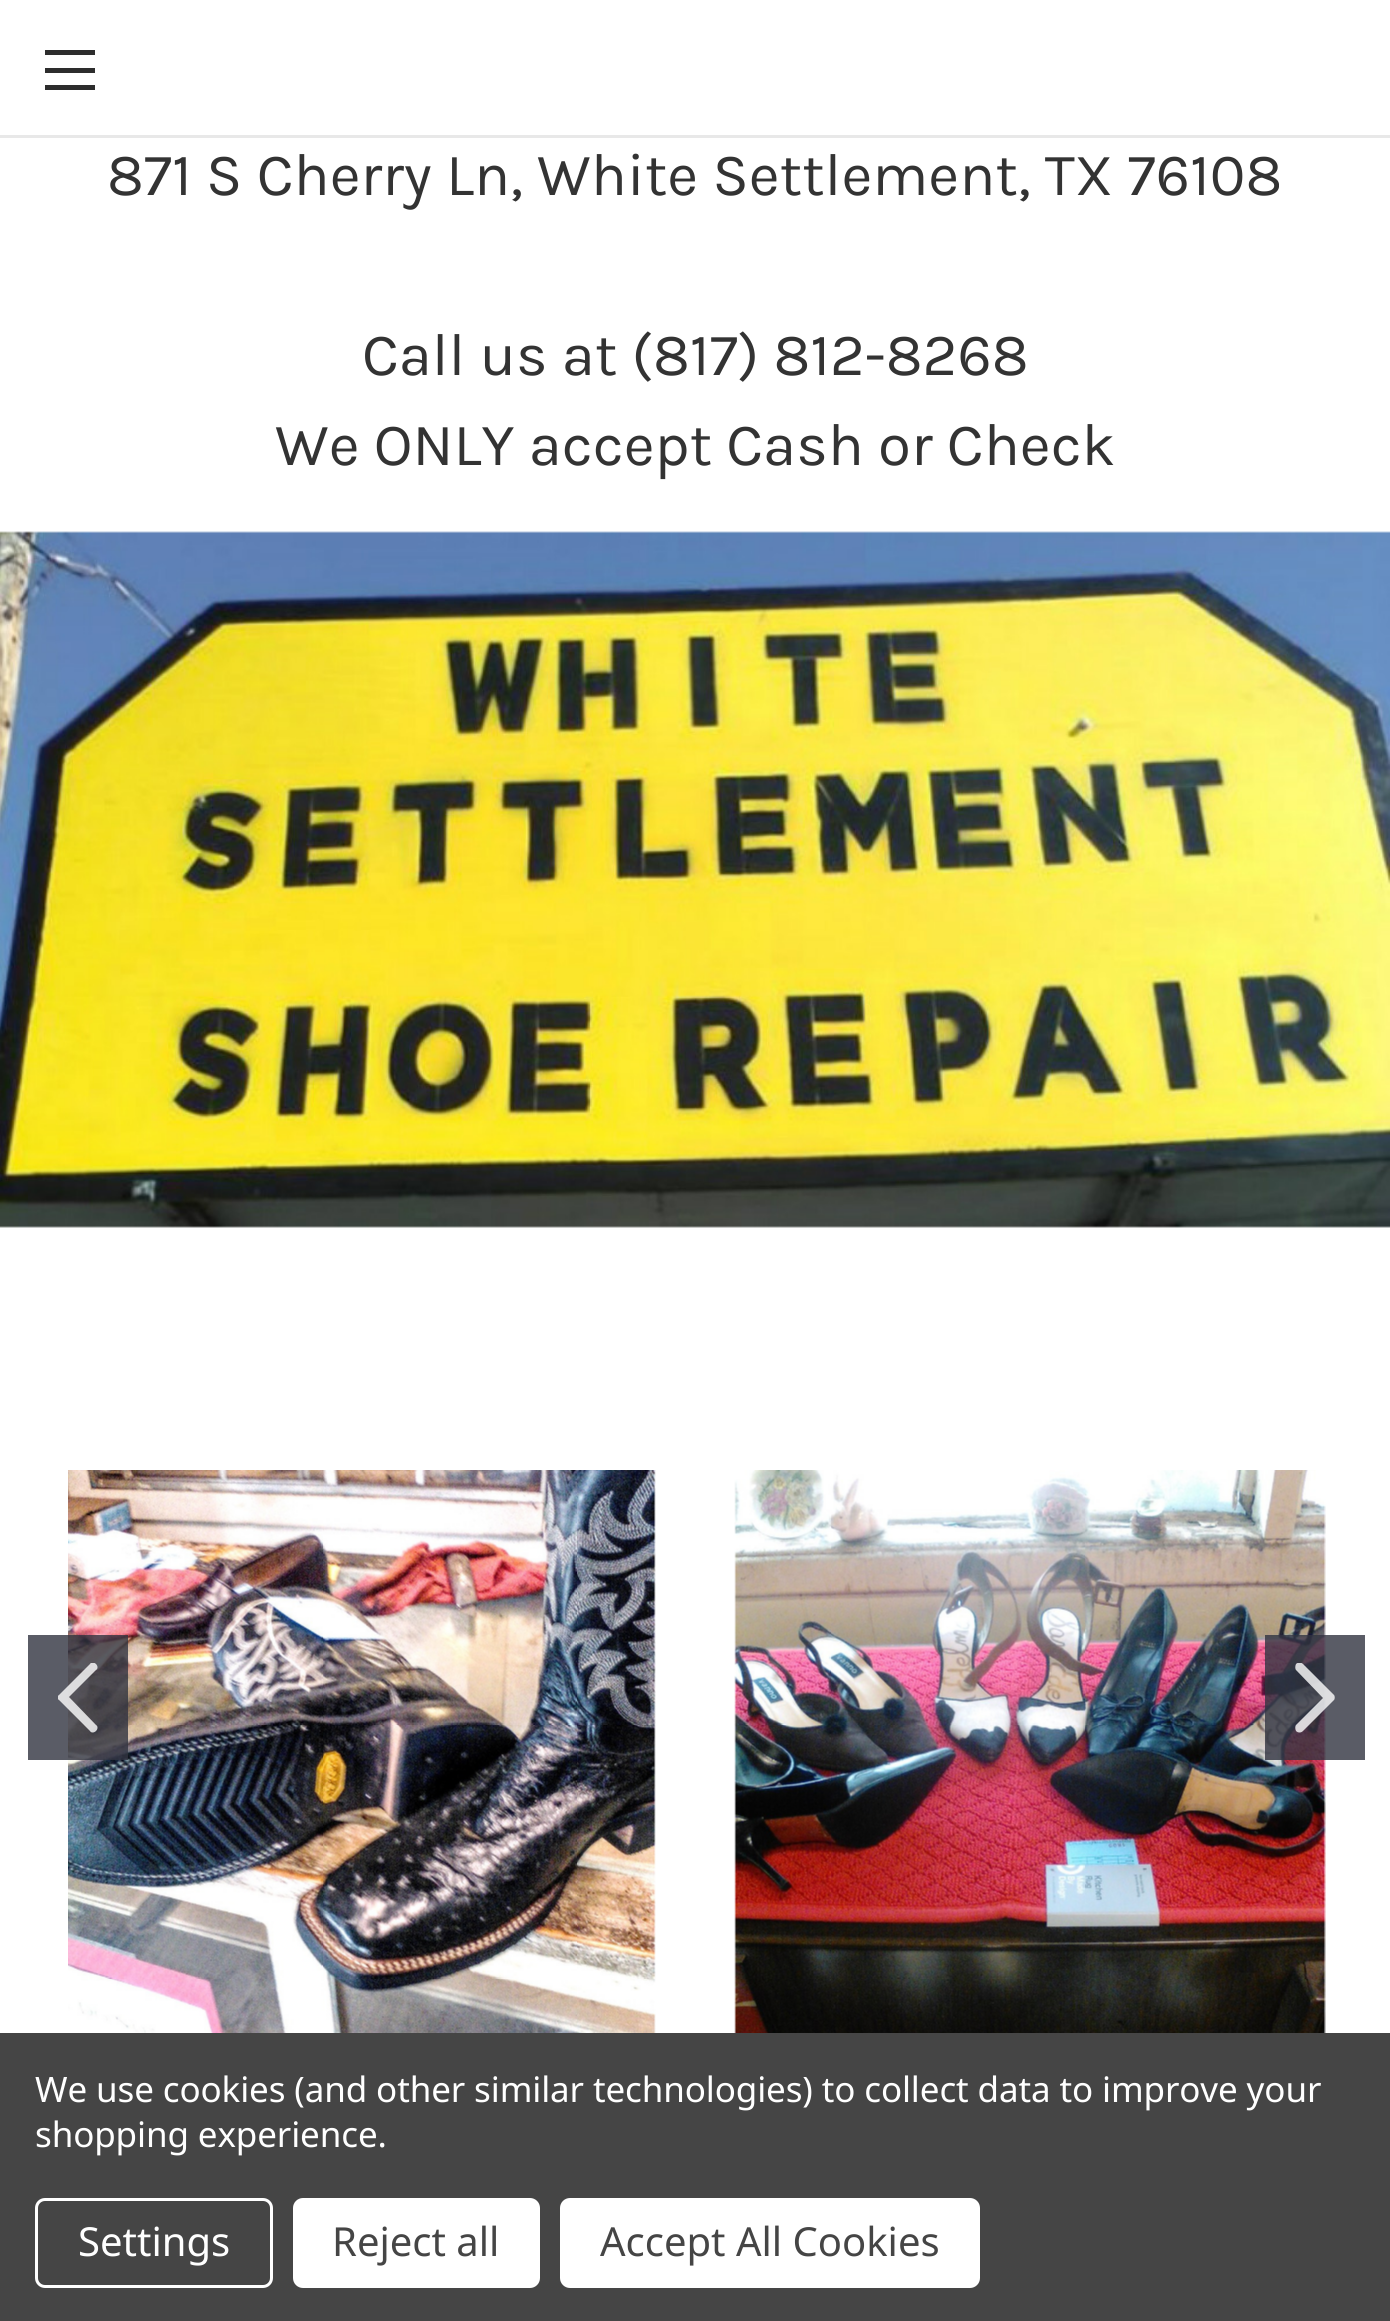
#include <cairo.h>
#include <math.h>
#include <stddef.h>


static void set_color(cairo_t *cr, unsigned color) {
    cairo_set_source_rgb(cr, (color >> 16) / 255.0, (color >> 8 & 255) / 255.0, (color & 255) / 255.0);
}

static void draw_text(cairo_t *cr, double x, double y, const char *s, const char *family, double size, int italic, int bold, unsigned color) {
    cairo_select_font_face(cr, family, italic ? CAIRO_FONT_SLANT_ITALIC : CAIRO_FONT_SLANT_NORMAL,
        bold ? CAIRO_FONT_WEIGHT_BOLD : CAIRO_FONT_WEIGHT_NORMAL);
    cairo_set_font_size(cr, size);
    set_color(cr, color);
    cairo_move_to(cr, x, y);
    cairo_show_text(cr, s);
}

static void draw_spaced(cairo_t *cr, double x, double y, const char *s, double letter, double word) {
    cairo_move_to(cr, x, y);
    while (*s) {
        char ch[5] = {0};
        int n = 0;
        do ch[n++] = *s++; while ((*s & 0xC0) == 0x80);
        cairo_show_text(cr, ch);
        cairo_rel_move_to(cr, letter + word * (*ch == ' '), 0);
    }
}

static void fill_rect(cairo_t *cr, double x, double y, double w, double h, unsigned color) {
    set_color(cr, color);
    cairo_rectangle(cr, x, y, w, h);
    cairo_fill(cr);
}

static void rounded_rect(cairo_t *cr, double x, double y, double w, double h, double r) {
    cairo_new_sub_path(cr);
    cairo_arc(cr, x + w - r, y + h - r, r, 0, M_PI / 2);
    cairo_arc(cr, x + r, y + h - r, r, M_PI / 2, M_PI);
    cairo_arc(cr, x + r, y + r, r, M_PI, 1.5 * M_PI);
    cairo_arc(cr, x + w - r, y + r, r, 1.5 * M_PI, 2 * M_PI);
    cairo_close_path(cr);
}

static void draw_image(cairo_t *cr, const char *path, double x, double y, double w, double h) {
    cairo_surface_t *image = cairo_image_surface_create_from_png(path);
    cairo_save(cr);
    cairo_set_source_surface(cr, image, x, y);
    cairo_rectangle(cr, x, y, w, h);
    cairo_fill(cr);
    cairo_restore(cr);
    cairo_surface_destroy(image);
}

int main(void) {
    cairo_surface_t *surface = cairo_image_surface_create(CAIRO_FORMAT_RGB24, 1390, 2321);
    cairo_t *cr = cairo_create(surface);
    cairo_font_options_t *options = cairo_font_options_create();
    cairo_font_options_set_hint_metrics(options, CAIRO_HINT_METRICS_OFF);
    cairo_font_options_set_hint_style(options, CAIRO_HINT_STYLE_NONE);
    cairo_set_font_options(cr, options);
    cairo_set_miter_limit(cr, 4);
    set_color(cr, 0xFFFFFF);
    cairo_paint(cr);
    fill_rect(cr, 0, 135, 1390, 3, 0xE8E8E8);
    fill_rect(cr, 45, 68, 50, 5, 0x2D2D2D);
    fill_rect(cr, 45, 50, 50, 5, 0x2D2D2D);
    fill_rect(cr, 45, 85, 50, 5, 0x2D2D2D);
    draw_text(cr, 107, 195, "871 S Cherry Ln, White Settlement, TX 76108", "Karla", 60, 0, 0, 0x333333);
    draw_text(cr, 362, 375, "Call us at (817) 812-8268", "Karla", 60, 0, 0, 0x333333);
    draw_text(cr, 275, 465, "We ONLY accept Cash or Check", "Karla", 60, 0, 0, 0x333333);
    draw_image(cr, "assets/img1.png", 0, 531, 1390, 697);
    draw_image(cr, "assets/img2.png", 68, 1470, 588, 563);
    draw_image(cr, "assets/img3.png", 734, 1470, 592, 563);
    cairo_set_source_rgba(cr, 0.192, 0.204, 0.251, 0.8);
    cairo_rectangle(cr, 28, 1635, 100, 125);
    cairo_fill(cr);
    cairo_save(cr);
    cairo_rectangle(cr, 58, 1663, 40, 70);
    cairo_clip(cr);
    cairo_set_source_rgba(cr, 1, 1, 1, 0.8);
    cairo_new_path(cr);
    cairo_move_to(cr, 96, 1664);
    cairo_curve_to(cr, 94, 1662, 91, 1662, 90, 1664);
    cairo_line_to(cr, 59, 1695);
    cairo_curve_to(cr, 57, 1696, 57, 1699, 59, 1700);
    cairo_line_to(cr, 90, 1731);
    cairo_curve_to(cr, 91, 1733, 94, 1733, 96, 1731);
    cairo_curve_to(cr, 98, 1729, 98, 1726, 96, 1725);
    cairo_line_to(cr, 69, 1697);
    cairo_line_to(cr, 96, 1670);
    cairo_curve_to(cr, 98, 1669, 98, 1666, 96, 1664);
    cairo_close_path(cr);
    cairo_fill(cr);
    cairo_restore(cr);
    cairo_rectangle(cr, 1265, 1635, 100, 125);
    cairo_fill(cr);
    cairo_save(cr);
    cairo_rectangle(cr, 1295, 1663, 40, 70);
    cairo_clip(cr);
    cairo_set_source_rgba(cr, 1, 1, 1, 0.8);
    cairo_new_path(cr);
    cairo_move_to(cr, 1296, 1731);
    cairo_curve_to(cr, 1298, 1733, 1301, 1733, 1303, 1731);
    cairo_line_to(cr, 1334, 1700);
    cairo_curve_to(cr, 1335, 1699, 1335, 1696, 1334, 1695);
    cairo_line_to(cr, 1303, 1664);
    cairo_curve_to(cr, 1301, 1662, 1298, 1662, 1296, 1664);
    cairo_curve_to(cr, 1295, 1666, 1295, 1669, 1296, 1670);
    cairo_line_to(cr, 1323, 1698);
    cairo_line_to(cr, 1296, 1725);
    cairo_curve_to(cr, 1295, 1726, 1295, 1729, 1296, 1731);
    cairo_close_path(cr);
    cairo_fill(cr);
    cairo_restore(cr);
    fill_rect(cr, 0, 2033, 1390, 288, 0x454545);
    cairo_select_font_face(cr, "Noto Sans", CAIRO_FONT_SLANT_NORMAL, CAIRO_FONT_WEIGHT_NORMAL);
    cairo_set_font_size(cr, 35);
    set_color(cr, 0xFFFFFF);
    draw_spaced(cr, 35, 2102, "We use cookies (and other similar technologies) to collect data to improve your", -0.12, 0);
    draw_spaced(cr, 35, 2147, "shopping experience.", -0.12, 0);
    rounded_rect(cr, 36.5, 2199.5, 235, 87, 8.5);
    cairo_set_line_width(cr, 3);
    cairo_stroke(cr);
    draw_text(cr, 78, 2256, "Settings", "Noto Sans", 40, 0, 0, 0xFFFFFF);
    rounded_rect(cr, 293, 2198, 247, 90, 10);
    cairo_fill(cr);
    draw_text(cr, 332, 2256, "Reject all", "Noto Sans", 40, 0, 0, 0x454545);
    set_color(cr, 0xFFFFFF);
    rounded_rect(cr, 560, 2198, 420, 90, 10);
    cairo_fill(cr);
    draw_text(cr, 600, 2256, "Accept All Cookies", "Noto Sans", 40, 0, 0, 0x454545);
    cairo_surface_write_to_png(surface, "output.png");
    cairo_font_options_destroy(options);
    cairo_destroy(cr);
    cairo_surface_destroy(surface);
    return 0;
}
